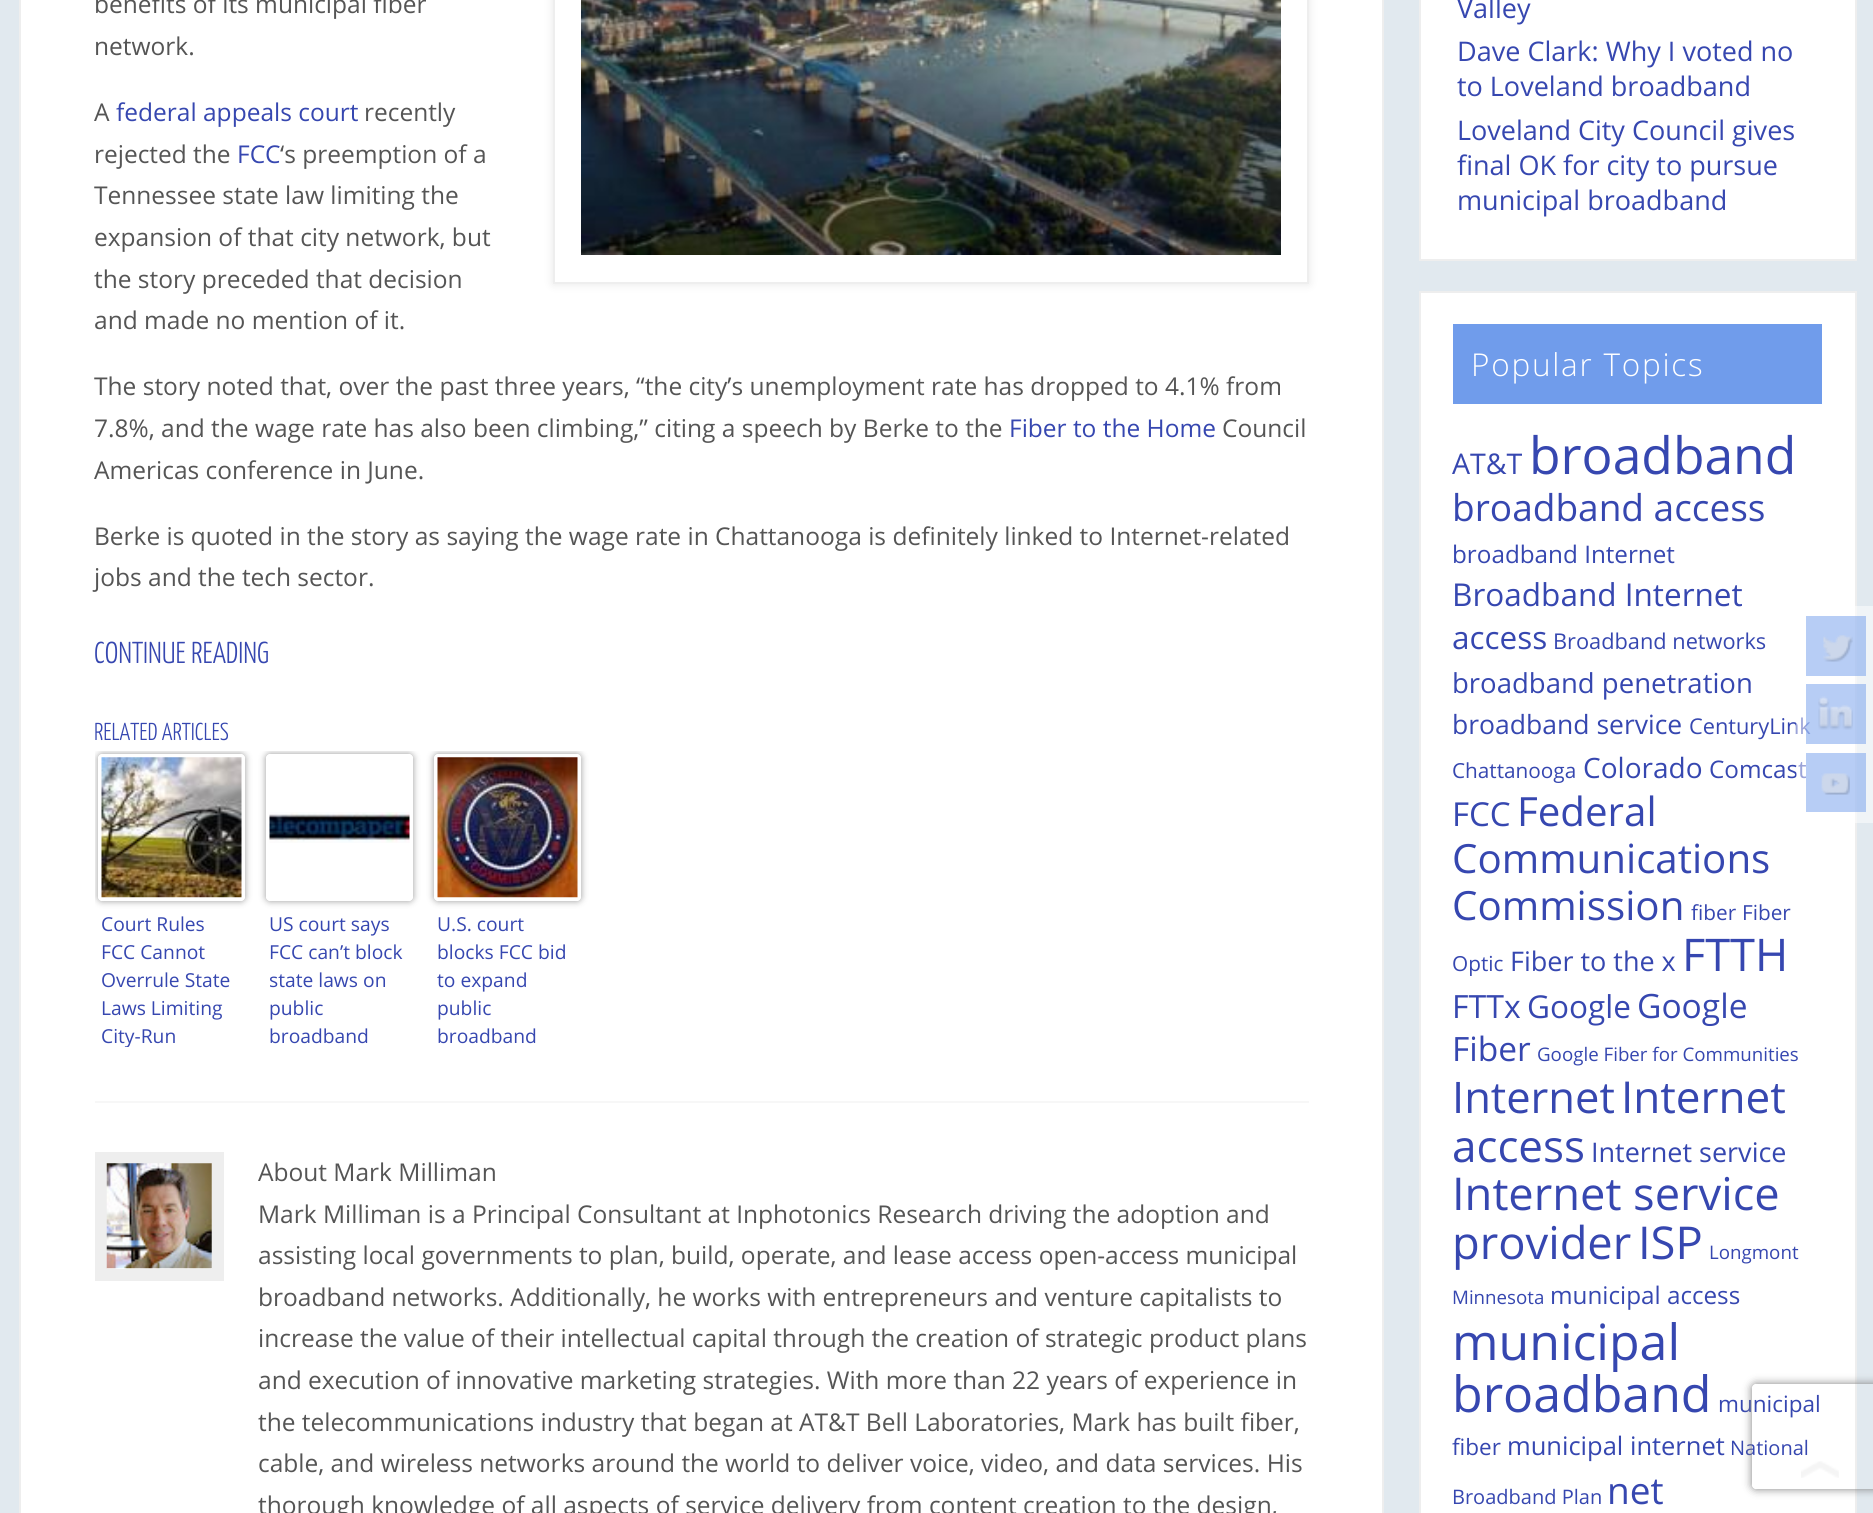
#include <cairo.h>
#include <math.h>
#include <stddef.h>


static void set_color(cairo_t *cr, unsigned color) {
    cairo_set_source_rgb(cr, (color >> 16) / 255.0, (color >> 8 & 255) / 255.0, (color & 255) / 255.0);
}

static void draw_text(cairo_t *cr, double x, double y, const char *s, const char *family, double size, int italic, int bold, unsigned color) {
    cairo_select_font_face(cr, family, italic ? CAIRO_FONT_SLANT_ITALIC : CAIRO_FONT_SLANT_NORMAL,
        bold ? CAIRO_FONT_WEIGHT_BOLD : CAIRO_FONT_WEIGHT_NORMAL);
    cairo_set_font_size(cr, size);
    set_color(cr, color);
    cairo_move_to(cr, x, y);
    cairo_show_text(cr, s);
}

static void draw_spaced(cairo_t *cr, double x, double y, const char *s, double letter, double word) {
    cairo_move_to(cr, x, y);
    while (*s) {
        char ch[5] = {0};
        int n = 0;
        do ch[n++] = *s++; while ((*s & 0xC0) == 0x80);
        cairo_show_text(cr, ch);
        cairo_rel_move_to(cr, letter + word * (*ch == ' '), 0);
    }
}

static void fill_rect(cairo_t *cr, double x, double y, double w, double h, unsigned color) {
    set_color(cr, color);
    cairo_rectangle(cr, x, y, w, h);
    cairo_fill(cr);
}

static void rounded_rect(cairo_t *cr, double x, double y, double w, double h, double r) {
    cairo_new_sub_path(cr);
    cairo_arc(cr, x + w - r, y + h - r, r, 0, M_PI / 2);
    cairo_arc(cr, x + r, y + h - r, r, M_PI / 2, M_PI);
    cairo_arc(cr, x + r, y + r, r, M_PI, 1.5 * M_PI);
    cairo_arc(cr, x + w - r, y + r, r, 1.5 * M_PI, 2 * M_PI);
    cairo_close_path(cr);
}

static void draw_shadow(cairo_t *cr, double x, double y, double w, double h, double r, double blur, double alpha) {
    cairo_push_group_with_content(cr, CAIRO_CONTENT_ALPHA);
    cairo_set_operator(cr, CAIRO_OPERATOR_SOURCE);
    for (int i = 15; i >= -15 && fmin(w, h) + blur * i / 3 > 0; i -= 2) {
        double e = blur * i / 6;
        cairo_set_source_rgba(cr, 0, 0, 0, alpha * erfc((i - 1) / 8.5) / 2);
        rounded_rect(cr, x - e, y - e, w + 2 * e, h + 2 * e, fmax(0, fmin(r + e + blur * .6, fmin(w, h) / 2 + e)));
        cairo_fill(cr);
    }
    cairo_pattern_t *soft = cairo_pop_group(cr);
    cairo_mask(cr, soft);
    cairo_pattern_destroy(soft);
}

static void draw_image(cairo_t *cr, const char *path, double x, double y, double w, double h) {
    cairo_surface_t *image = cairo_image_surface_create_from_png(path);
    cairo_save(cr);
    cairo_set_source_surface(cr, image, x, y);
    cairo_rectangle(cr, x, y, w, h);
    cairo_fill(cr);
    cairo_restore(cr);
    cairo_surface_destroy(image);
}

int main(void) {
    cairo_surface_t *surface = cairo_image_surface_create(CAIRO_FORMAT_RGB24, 1873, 1513);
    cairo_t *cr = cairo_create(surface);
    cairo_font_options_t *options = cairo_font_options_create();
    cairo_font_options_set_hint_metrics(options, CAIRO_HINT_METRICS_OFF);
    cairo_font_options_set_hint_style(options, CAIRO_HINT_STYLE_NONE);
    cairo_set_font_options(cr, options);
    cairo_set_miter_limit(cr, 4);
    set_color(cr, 0xE1E9EF);
    cairo_paint(cr);
    set_color(cr, 0xFFFFFF);
    cairo_rectangle(cr, 20, -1, 1363, 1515);
    cairo_fill_preserve(cr);
    set_color(cr, 0xEEEEEE);
    cairo_stroke(cr);
    draw_text(cr, 94, 13, "benefits of its municipal fiber", "Open Sans", 24.5, 0, 0, 0x555555);
    draw_text(cr, 94, 55, "network.", "Open Sans", 24.5, 0, 0, 0x555555);
    cairo_save(cr);
    cairo_set_fill_rule(cr, CAIRO_FILL_RULE_EVEN_ODD);
    cairo_new_path(cr);
    cairo_move_to(cr, 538, 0);
    cairo_line_to(cr, 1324, 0);
    cairo_line_to(cr, 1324, 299);
    cairo_line_to(cr, 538, 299);
    cairo_close_path(cr);
    cairo_move_to(cr, 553, -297);
    cairo_line_to(cr, 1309, -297);
    cairo_line_to(cr, 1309, 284);
    cairo_line_to(cr, 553, 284);
    cairo_close_path(cr);
    cairo_clip(cr);
    set_color(cr, 0xE7E7E7);
    draw_shadow(cr, 553, -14, 756, 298, 0, 4.5, 1);
    cairo_restore(cr);
    cairo_rectangle(cr, 554, -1, 754, 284);
    set_color(cr, 0xEEEEEE);
    cairo_stroke(cr);
    draw_image(cr, "assets/img1.png", 581, 0, 700, 255);
    draw_text(cr, 94, 121, "A", "Open Sans", 24.5, 0, 0, 0x555555);
    draw_text(cr, 116, 121, "federal appeals court", "Open Sans", 24.5, 0, 0, 0x3647B0);
    draw_text(cr, 364, 121, "recently", "Open Sans", 24.5, 0, 0, 0x555555);
    draw_text(cr, 94, 163, "rejected the", "Open Sans", 24.5, 0, 0, 0x555555);
    draw_text(cr, 237, 163, "FCC", "Open Sans", 24.5, 0, 0, 0x3647B0);
    draw_text(cr, 280, 163, "‘s preemption of a", "Open Sans", 24.5, 0, 0, 0x555555);
    draw_text(cr, 94, 204, "Tennessee state law limiting the", "Open Sans", 24.5, 0, 0, 0x555555);
    draw_text(cr, 94, 246, "expansion of that city network, but", "Open Sans", 24.5, 0, 0, 0x555555);
    draw_text(cr, 94, 288, "the story preceded that decision", "Open Sans", 24.5, 0, 0, 0x555555);
    draw_text(cr, 94, 329, "and made no mention of it.", "Open Sans", 24.5, 0, 0, 0x555555);
    draw_text(cr, 94, 395, "The story noted that, over the past three years, “the city’s unemployment rate has dropped to 4.1% from", "Open Sans", 24.5, 0, 0, 0x555555);
    draw_text(cr, 94, 437, "7.8%, and the wage rate has also been climbing,” citing a speech by Berke to the", "Open Sans", 24.5, 0, 0, 0x555555);
    draw_text(cr, 1009, 437, "Fiber to the Home", "Open Sans", 24.5, 0, 0, 0x3647B0);
    draw_text(cr, 1222, 437, "Council", "Open Sans", 24.5, 0, 0, 0x555555);
    draw_text(cr, 94, 479, "Americas conference in June.", "Open Sans", 24.5, 0, 0, 0x555555);
    draw_text(cr, 94, 545, "Berke is quoted in the story as saying the wage rate in Chattanooga is definitely linked to Internet-related", "Open Sans", 24.5, 0, 0, 0x555555);
    draw_text(cr, 94, 586, "jobs and the tech sector.", "Open Sans", 24.5, 0, 0, 0x555555);
    draw_text(cr, 94, 663, "CONTINUE READING", "Yanone Kaffeesatz Light", 30.25, 0, 0, 0x3647B0);
    draw_text(cr, 94, 740, "RELATED ARTICLES", "Yanone Kaffeesatz Light", 24.5, 0, 0, 0x3647B0);
    cairo_save(cr);
    cairo_rectangle(cr, 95, 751, 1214, 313);
    cairo_clip(cr);
    cairo_set_fill_rule(cr, CAIRO_FILL_RULE_EVEN_ODD);
    cairo_new_path(cr);
    cairo_move_to(cr, 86, 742);
    cairo_line_to(cr, 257, 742);
    cairo_line_to(cr, 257, 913);
    cairo_line_to(cr, 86, 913);
    cairo_close_path(cr);
    cairo_move_to(cr, 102, 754);
    cairo_line_to(cr, 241, 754);
    cairo_curve_to(cr, 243, 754, 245, 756, 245, 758);
    cairo_line_to(cr, 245, 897);
    cairo_curve_to(cr, 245, 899, 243, 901, 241, 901);
    cairo_line_to(cr, 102, 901);
    cairo_curve_to(cr, 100, 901, 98, 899, 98, 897);
    cairo_line_to(cr, 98, 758);
    cairo_curve_to(cr, 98, 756, 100, 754, 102, 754);
    cairo_close_path(cr);
    cairo_clip(cr);
    set_color(cr, 0x999999);
    draw_shadow(cr, 98, 754, 147, 147, 4, 3.5, 1);
    cairo_restore(cr);
    draw_image(cr, "assets/img2.png", 101, 757, 141, 141);
    draw_text(cr, 101, 931, "Court Rules", "Open Sans", 19.25, 0, 0, 0x3647B0);
    draw_text(cr, 101, 959, "FCC Cannot", "Open Sans", 19.25, 0, 0, 0x3647B0);
    draw_text(cr, 101, 987, "Overrule State", "Open Sans", 19.25, 0, 0, 0x3647B0);
    draw_text(cr, 101, 1015, "Laws Limiting", "Open Sans", 19.25, 0, 0, 0x3647B0);
    cairo_save(cr);
    cairo_rectangle(cr, 98, 901, 147, 146);
    cairo_clip(cr);
    draw_text(cr, 101, 1043, "City-Run", "Open Sans", 19.25, 0, 0, 0x3647B0);
    cairo_restore(cr);
    cairo_save(cr);
    cairo_rectangle(cr, 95, 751, 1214, 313);
    cairo_clip(cr);
    cairo_set_fill_rule(cr, CAIRO_FILL_RULE_EVEN_ODD);
    cairo_new_path(cr);
    cairo_move_to(cr, 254, 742);
    cairo_line_to(cr, 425, 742);
    cairo_line_to(cr, 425, 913);
    cairo_line_to(cr, 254, 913);
    cairo_close_path(cr);
    cairo_move_to(cr, 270, 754);
    cairo_line_to(cr, 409, 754);
    cairo_curve_to(cr, 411, 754, 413, 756, 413, 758);
    cairo_line_to(cr, 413, 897);
    cairo_curve_to(cr, 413, 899, 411, 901, 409, 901);
    cairo_line_to(cr, 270, 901);
    cairo_curve_to(cr, 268, 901, 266, 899, 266, 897);
    cairo_line_to(cr, 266, 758);
    cairo_curve_to(cr, 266, 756, 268, 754, 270, 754);
    cairo_close_path(cr);
    cairo_clip(cr);
    set_color(cr, 0x999999);
    draw_shadow(cr, 266, 754, 147, 147, 4, 3.5, 1);
    cairo_restore(cr);
    draw_image(cr, "assets/img3.png", 269, 812, 141, 31);
    draw_text(cr, 269, 931, "US court says", "Open Sans", 19.25, 0, 0, 0x3647B0);
    draw_text(cr, 269, 959, "FCC can’t block", "Open Sans", 19.25, 0, 0, 0x3647B0);
    draw_text(cr, 269, 987, "state laws on", "Open Sans", 19.25, 0, 0, 0x3647B0);
    draw_text(cr, 269, 1015, "public", "Open Sans", 19.25, 0, 0, 0x3647B0);
    draw_text(cr, 269, 1043, "broadband", "Open Sans", 19.25, 0, 0, 0x3647B0);
    cairo_save(cr);
    cairo_rectangle(cr, 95, 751, 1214, 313);
    cairo_clip(cr);
    cairo_set_fill_rule(cr, CAIRO_FILL_RULE_EVEN_ODD);
    cairo_new_path(cr);
    cairo_move_to(cr, 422, 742);
    cairo_line_to(cr, 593, 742);
    cairo_line_to(cr, 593, 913);
    cairo_line_to(cr, 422, 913);
    cairo_close_path(cr);
    cairo_move_to(cr, 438, 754);
    cairo_line_to(cr, 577, 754);
    cairo_curve_to(cr, 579, 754, 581, 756, 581, 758);
    cairo_line_to(cr, 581, 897);
    cairo_curve_to(cr, 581, 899, 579, 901, 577, 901);
    cairo_line_to(cr, 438, 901);
    cairo_curve_to(cr, 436, 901, 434, 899, 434, 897);
    cairo_line_to(cr, 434, 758);
    cairo_curve_to(cr, 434, 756, 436, 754, 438, 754);
    cairo_close_path(cr);
    cairo_clip(cr);
    set_color(cr, 0x999999);
    draw_shadow(cr, 434, 754, 147, 147, 4, 3.5, 1);
    cairo_restore(cr);
    draw_image(cr, "assets/img4.png", 437, 757, 141, 141);
    draw_text(cr, 437, 931, "U.S. court", "Open Sans", 19.25, 0, 0, 0x3647B0);
    draw_text(cr, 437, 959, "blocks FCC bid", "Open Sans", 19.25, 0, 0, 0x3647B0);
    draw_text(cr, 437, 987, "to expand", "Open Sans", 19.25, 0, 0, 0x3647B0);
    draw_text(cr, 437, 1015, "public", "Open Sans", 19.25, 0, 0, 0x3647B0);
    draw_text(cr, 437, 1043, "broadband", "Open Sans", 19.25, 0, 0, 0x3647B0);
    fill_rect(cr, 95, 1101, 1214, 2, 0xF7F7F7);
    cairo_rectangle(cr, 101, 1158, 117, 117);
    set_color(cr, 0xEEEEEE);
    cairo_set_line_width(cr, 12);
    cairo_stroke(cr);
    draw_image(cr, "assets/img5.png", 106, 1163, 106, 106);
    draw_text(cr, 258, 1181, "About Mark Milliman", "Open Sans", 24.5, 0, 0, 0x555555);
    draw_text(cr, 258, 1223, "Mark Milliman is a Principal Consultant at Inphotonics Research driving the adoption and", "Open Sans", 24.5, 0, 0, 0x555555);
    draw_text(cr, 258, 1264, "assisting local governments to plan, build, operate, and lease access open-access municipal", "Open Sans", 24.5, 0, 0, 0x555555);
    draw_text(cr, 258, 1306, "broadband networks. Additionally, he works with entrepreneurs and venture capitalists to", "Open Sans", 24.5, 0, 0, 0x555555);
    draw_text(cr, 258, 1347, "increase the value of their intellectual capital through the creation of strategic product plans", "Open Sans", 24.5, 0, 0, 0x555555);
    draw_text(cr, 258, 1389, "and execution of innovative marketing strategies. With more than 22 years of experience in", "Open Sans", 24.5, 0, 0, 0x555555);
    draw_text(cr, 258, 1431, "the telecommunications industry that began at AT&T Bell Laboratories, Mark has built fiber,", "Open Sans", 24.5, 0, 0, 0x555555);
    draw_text(cr, 258, 1472, "cable, and wireless networks around the world to deliver voice, video, and data services. His", "Open Sans", 24.5, 0, 0, 0x555555);
    draw_text(cr, 258, 1514, "thorough knowledge of all aspects of service delivery from content creation to the design,", "Open Sans", 24.5, 0, 0, 0x555555);
    set_color(cr, 0xFFFFFF);
    cairo_rectangle(cr, 1420, -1, 436, 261);
    cairo_fill_preserve(cr);
    set_color(cr, 0xEEEEEE);
    cairo_set_line_width(cr, 2);
    cairo_stroke(cr);
    draw_text(cr, 1457, 18, "Valley", "Open Sans", 27, 0, 0, 0x3647B0);
    draw_text(cr, 1457, 61, "Dave Clark: Why I voted no", "Open Sans", 27, 0, 0, 0x3647B0);
    draw_text(cr, 1457, 96, "to Loveland broadband", "Open Sans", 27, 0, 0, 0x3647B0);
    draw_text(cr, 1457, 140, "Loveland City Council gives", "Open Sans", 27, 0, 0, 0x3647B0);
    draw_text(cr, 1457, 175, "final OK for city to pursue", "Open Sans", 27, 0, 0, 0x3647B0);
    draw_text(cr, 1457, 210, "municipal broadband", "Open Sans", 27, 0, 0, 0x3647B0);
    set_color(cr, 0xFFFFFF);
    cairo_rectangle(cr, 1420, 292, 436, 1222);
    cairo_fill_preserve(cr);
    set_color(cr, 0xEEEEEE);
    cairo_stroke(cr);
    fill_rect(cr, 1453, 324, 369, 80, 0x709CEB);
    cairo_select_font_face(cr, "Open Sans Light", CAIRO_FONT_SLANT_NORMAL, CAIRO_FONT_WEIGHT_NORMAL);
    cairo_set_font_size(cr, 31.5);
    set_color(cr, 0xFFFFFF);
    draw_spaced(cr, 1471, 376, "Popular Topics", 1.75, 0);
    draw_text(cr, 1452, 474, "AT&T", "Open Sans", 28.5, 0, 0, 0x3647B0);
    draw_text(cr, 1529, 474, "broadband", "Open Sans", 51.5, 0, 0, 0x3647B0);
    draw_text(cr, 1452, 521, "broadband access", "Open Sans", 37, 0, 0, 0x3647B0);
    draw_text(cr, 1452, 563, "broadband Internet", "Open Sans", 24.25, 0, 0, 0x3647B0);
    draw_text(cr, 1452, 606, "Broadband Internet", "Open Sans", 31.5, 0, 0, 0x3647B0);
    draw_text(cr, 1452, 649, "access", "Open Sans", 31.5, 0, 0, 0x3647B0);
    draw_text(cr, 1553, 649, "Broadband networks", "Open Sans", 21.75, 0, 0, 0x3647B0);
    draw_text(cr, 1452, 693, "broadband penetration", "Open Sans", 27.5, 0, 0, 0x3647B0);
    draw_text(cr, 1452, 734, "broadband service", "Open Sans", 26.5, 0, 0, 0x3647B0);
    draw_text(cr, 1689, 734, "CenturyLink", "Open Sans", 21.75, 0, 0, 0x3647B0);
    draw_text(cr, 1452, 778, "Chattanooga", "Open Sans", 20.75, 0, 0, 0x3647B0);
    draw_text(cr, 1583, 778, "Colorado", "Open Sans", 28, 0, 0, 0x3647B0);
    draw_text(cr, 1709, 778, "Comcast", "Open Sans", 24.25, 0, 0, 0x3647B0);
    draw_text(cr, 1452, 826, "FCC", "Open Sans", 33, 0, 0, 0x3647B0);
    draw_text(cr, 1517, 826, "Federal", "Open Sans", 40.25, 0, 0, 0x3647B0);
    draw_text(cr, 1452, 873, "Communications", "Open Sans", 40.25, 0, 0, 0x3647B0);
    draw_text(cr, 1452, 920, "Commission", "Open Sans", 40.25, 0, 0, 0x3647B0);
    draw_text(cr, 1691, 920, "fiber", "Open Sans", 20.75, 0, 0, 0x3647B0);
    draw_text(cr, 1742, 920, "Fiber", "Open Sans", 20.75, 0, 0, 0x3647B0);
    draw_text(cr, 1452, 971, "Optic", "Open Sans", 20.75, 0, 0, 0x3647B0);
    draw_text(cr, 1510, 971, "Fiber to the x", "Open Sans", 27, 0, 0, 0x3647B0);
    draw_text(cr, 1682, 971, "FTTH", "Open Sans", 45, 0, 0, 0x3647B0);
    draw_text(cr, 1452, 1018, "FTTx", "Open Sans", 32, 0, 0, 0x3647B0);
    draw_text(cr, 1527, 1018, "Google", "Open Sans", 31.5, 0, 0, 0x3647B0);
    draw_text(cr, 1637, 1018, "Google", "Open Sans", 33.5, 0, 0, 0x3647B0);
    draw_text(cr, 1452, 1061, "Fiber", "Open Sans", 33.5, 0, 0, 0x3647B0);
    draw_text(cr, 1537, 1061, "Google Fiber for Communities", "Open Sans", 18.7, 0, 0, 0x3647B0);
    draw_text(cr, 1452, 1113, "Internet", "Open Sans", 43.5, 0, 0, 0x3647B0);
    draw_text(cr, 1621, 1113, "Internet", "Open Sans", 44, 0, 0, 0x3647B0);
    draw_text(cr, 1452, 1162, "access", "Open Sans", 44, 0, 0, 0x3647B0);
    draw_text(cr, 1591, 1162, "Internet service", "Open Sans", 27, 0, 0, 0x3647B0);
    draw_text(cr, 1452, 1210, "Internet service", "Open Sans", 45.25, 0, 0, 0x3647B0);
    draw_text(cr, 1452, 1259, "provider", "Open Sans", 45.25, 0, 0, 0x3647B0);
    draw_text(cr, 1638, 1259, "ISP", "Open Sans", 45.25, 0, 0, 0x3647B0);
    draw_text(cr, 1709, 1259, "Longmont", "Open Sans", 18.7, 0, 0, 0x3647B0);
    draw_text(cr, 1452, 1304, "Minnesota", "Open Sans", 18.7, 0, 0, 0x3647B0);
    draw_text(cr, 1550, 1304, "municipal access", "Open Sans", 24.25, 0, 0, 0x3647B0);
    draw_text(cr, 1452, 1360, "municipal", "Open Sans", 50, 0, 0, 0x3647B0);
    draw_text(cr, 1452, 1412, "broadband", "Open Sans", 50, 0, 0, 0x3647B0);
    draw_text(cr, 1718, 1412, "municipal", "Open Sans", 22.5, 0, 0, 0x3647B0);
    draw_text(cr, 1452, 1455, "fiber", "Open Sans", 22.5, 0, 0, 0x3647B0);
    draw_text(cr, 1507, 1455, "municipal internet", "Open Sans", 25.5, 0, 0, 0x3647B0);
    draw_text(cr, 1730, 1455, "National", "Open Sans", 20, 0, 0, 0x3647B0);
    draw_text(cr, 1452, 1504, "Broadband Plan", "Open Sans", 20, 0, 0, 0x3647B0);
    draw_text(cr, 1607, 1504, "net", "Open Sans", 37, 0, 0, 0x3647B0);
    cairo_set_source_rgba(cr, 1, 1, 1, 0.5);
    cairo_rectangle(cr, 1796, 606, 77, 217);
    cairo_fill(cr);
    cairo_set_source_rgba(cr, 0.439, 0.612, 0.922, 0.5);
    cairo_rectangle(cr, 1806, 616, 60, 60);
    cairo_fill(cr);
    draw_image(cr, "assets/img6.png", 1823, 635, 30, 27);
    cairo_rectangle(cr, 1806, 684, 60, 60);
    cairo_fill(cr);
    draw_image(cr, "assets/img7.png", 1818, 696, 35, 34);
    cairo_rectangle(cr, 1806, 753, 60, 59);
    cairo_fill(cr);
    draw_image(cr, "assets/img8.png", 1821, 773, 29, 22);
    cairo_save(cr);
    cairo_set_fill_rule(cr, CAIRO_FILL_RULE_EVEN_ODD);
    cairo_new_path(cr);
    cairo_move_to(cr, 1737, 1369);
    cairo_line_to(cr, 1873, 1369);
    cairo_line_to(cr, 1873, 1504);
    cairo_line_to(cr, 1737, 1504);
    cairo_close_path(cr);
    cairo_move_to(cr, 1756, 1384);
    cairo_line_to(cr, 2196, 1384);
    cairo_curve_to(cr, 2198, 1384, 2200, 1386, 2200, 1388);
    cairo_line_to(cr, 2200, 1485);
    cairo_curve_to(cr, 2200, 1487, 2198, 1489, 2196, 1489);
    cairo_line_to(cr, 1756, 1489);
    cairo_curve_to(cr, 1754, 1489, 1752, 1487, 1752, 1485);
    cairo_line_to(cr, 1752, 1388);
    cairo_curve_to(cr, 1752, 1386, 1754, 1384, 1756, 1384);
    cairo_close_path(cr);
    cairo_clip(cr);
    set_color(cr, 0x808080);
    draw_shadow(cr, 1752, 1384, 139, 105, 4, 4.5, 1);
    cairo_restore(cr);
    draw_image(cr, "assets/img9.png", 1801, 1461, 38, 17);
    cairo_surface_write_to_png(surface, "output.png");
    cairo_font_options_destroy(options);
    cairo_destroy(cr);
    cairo_surface_destroy(surface);
    return 0;
}
